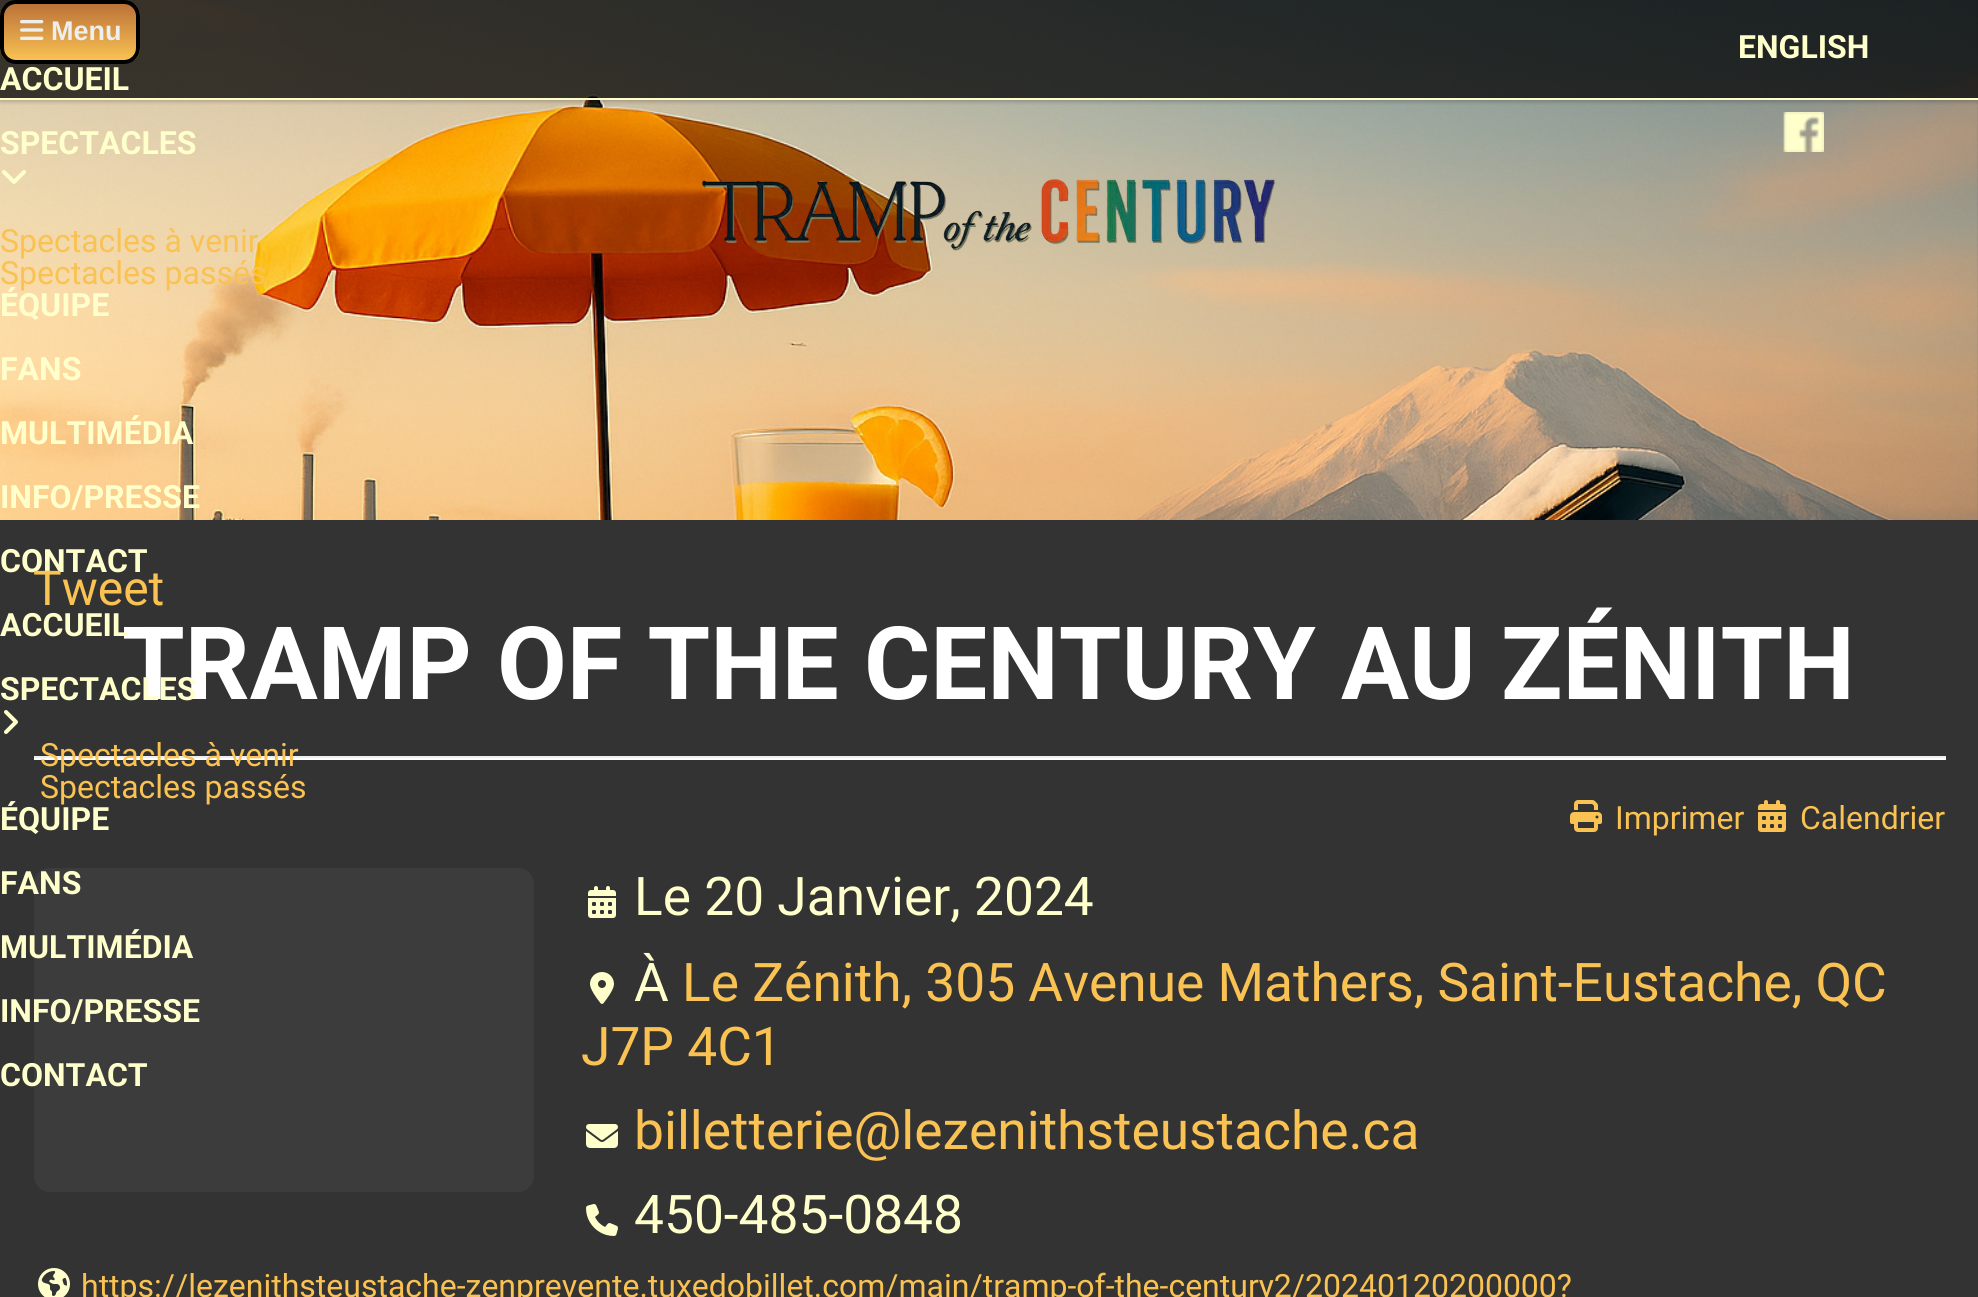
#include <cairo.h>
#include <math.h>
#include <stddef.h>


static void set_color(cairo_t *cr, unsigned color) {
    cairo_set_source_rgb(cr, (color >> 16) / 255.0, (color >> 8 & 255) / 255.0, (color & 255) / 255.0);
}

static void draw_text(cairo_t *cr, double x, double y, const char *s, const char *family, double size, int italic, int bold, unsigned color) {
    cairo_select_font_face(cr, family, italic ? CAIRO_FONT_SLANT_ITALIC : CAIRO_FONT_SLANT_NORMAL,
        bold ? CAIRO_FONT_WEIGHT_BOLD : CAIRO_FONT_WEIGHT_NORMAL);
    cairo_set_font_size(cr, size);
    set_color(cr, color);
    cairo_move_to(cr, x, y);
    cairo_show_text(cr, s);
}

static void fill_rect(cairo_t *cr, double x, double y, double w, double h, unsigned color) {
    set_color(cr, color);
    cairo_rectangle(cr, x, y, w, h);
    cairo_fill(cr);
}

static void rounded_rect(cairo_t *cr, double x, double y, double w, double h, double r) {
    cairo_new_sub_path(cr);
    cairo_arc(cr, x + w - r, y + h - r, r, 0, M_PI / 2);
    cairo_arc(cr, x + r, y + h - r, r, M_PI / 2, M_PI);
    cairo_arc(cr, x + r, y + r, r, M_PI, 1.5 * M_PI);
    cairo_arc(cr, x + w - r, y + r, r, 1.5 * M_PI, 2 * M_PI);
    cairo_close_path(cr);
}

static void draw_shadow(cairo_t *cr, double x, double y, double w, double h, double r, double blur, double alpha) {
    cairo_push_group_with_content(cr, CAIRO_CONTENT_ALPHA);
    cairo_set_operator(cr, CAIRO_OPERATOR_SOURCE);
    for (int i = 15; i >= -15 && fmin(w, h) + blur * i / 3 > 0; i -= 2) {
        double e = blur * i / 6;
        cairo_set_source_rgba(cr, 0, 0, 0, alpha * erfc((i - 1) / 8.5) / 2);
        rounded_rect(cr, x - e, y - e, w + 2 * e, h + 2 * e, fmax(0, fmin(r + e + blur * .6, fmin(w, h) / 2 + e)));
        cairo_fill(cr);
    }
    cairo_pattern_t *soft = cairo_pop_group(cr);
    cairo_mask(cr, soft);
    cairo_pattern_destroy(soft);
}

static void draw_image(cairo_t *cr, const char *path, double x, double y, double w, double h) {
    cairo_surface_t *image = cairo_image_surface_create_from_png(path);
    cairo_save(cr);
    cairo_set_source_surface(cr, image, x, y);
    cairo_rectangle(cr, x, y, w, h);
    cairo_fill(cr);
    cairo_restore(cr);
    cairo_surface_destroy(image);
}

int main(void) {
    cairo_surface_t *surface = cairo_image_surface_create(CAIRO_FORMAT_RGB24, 1978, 1297);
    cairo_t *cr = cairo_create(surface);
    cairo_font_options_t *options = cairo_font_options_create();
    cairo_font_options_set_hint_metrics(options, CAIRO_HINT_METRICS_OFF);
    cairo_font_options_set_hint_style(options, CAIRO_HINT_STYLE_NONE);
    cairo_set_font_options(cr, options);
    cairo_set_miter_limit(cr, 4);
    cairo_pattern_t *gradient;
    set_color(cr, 0x333333);
    cairo_paint(cr);
    draw_image(cr, "assets/img5.png", 0, 0, 1978, 520);
    cairo_save(cr);
    cairo_rectangle(cr, 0, 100, 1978, 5);
    cairo_clip(cr);
    set_color(cr, 0x000000);
    draw_shadow(cr, 0, 2, 1978, 100, 0, 2, 0.2);
    cairo_restore(cr);
    cairo_set_source_rgba(cr, 0, 0, 0, 0.75);
    cairo_rectangle(cr, 0, 0, 1978, 98);
    cairo_fill(cr);
    fill_rect(cr, 0, 98, 1978, 2, 0xFFFFCC);
    cairo_save(cr);
    rounded_rect(cr, 0, 0, 140, 64, 16);
    cairo_clip(cr);
    gradient = cairo_pattern_create_linear(70, 4, 70, 60);
    cairo_pattern_add_color_stop_rgba(gradient, 0, 0.733, 0.447, 0.22, 1);
    cairo_pattern_add_color_stop_rgba(gradient, 1, 0.976, 0.761, 0.325, 1);
    cairo_set_source(cr, gradient);
    cairo_pattern_destroy(gradient);
    cairo_rectangle(cr, 0, 4, 140, 56);
    cairo_fill(cr);
    cairo_restore(cr);
    rounded_rect(cr, 2, 2, 136, 60, 14);
    set_color(cr, 0x000000);
    cairo_set_line_width(cr, 4);
    cairo_stroke(cr);
    draw_image(cr, "assets/img1.png", 20, 20, 24, 20);
    draw_text(cr, 51, 40, "Menu", "Liberation Sans", 27, 0, 1, 0xEEEEEE);
    draw_text(cr, 0, 90, "ACCUEIL", "Roboto", 32, 0, 1, 0xFFFFCC);
    draw_text(cr, 0, 154, "SPECTACLES", "Roboto", 32, 0, 1, 0xFFFFCC);
    draw_image(cr, "assets/img2.png", 2, 170, 24, 14);
    draw_text(cr, 0, 252, "Spectacles à venir", "Roboto", 32, 0, 0, 0xF9C253);
    draw_text(cr, 0, 284, "Spectacles passés", "Roboto", 32, 0, 0, 0xF9C253);
    draw_text(cr, 0, 316, "ÉQUIPE", "Roboto", 32, 0, 1, 0xFFFFCC);
    draw_text(cr, 0, 380, "FANS", "Roboto", 32, 0, 1, 0xFFFFCC);
    draw_text(cr, 0, 444, "MULTIMÉDIA", "Roboto", 32, 0, 1, 0xFFFFCC);
    draw_text(cr, 0, 508, "INFO/PRESSE", "Roboto", 32, 0, 1, 0xFFFFCC);
    draw_text(cr, 0, 572, "CONTACT", "Roboto", 32, 0, 1, 0xFFFFCC);
    draw_text(cr, 122, 699, "TRAMP OF THE CENTURY AU ZÉNITH", "Roboto", 101.3, 0, 1, 0xFFFFFF);
    draw_text(cr, 0, 636, "ACCUEIL", "Roboto", 32, 0, 1, 0xFFFFCC);
    draw_text(cr, 0, 700, "SPECTACLES", "Roboto", 32, 0, 1, 0xFFFFCC);
    draw_image(cr, "assets/img3.png", 4, 710, 14, 24);
    fill_rect(cr, 34, 756, 1912, 2, 0xEEEEEE);
    fill_rect(cr, 34, 758, 1912, 2, 0xFFFFFF);
    draw_text(cr, 40, 766, "Spectacles à venir", "Roboto", 32, 0, 0, 0xF9C253);
    draw_text(cr, 40, 798, "Spectacles passés", "Roboto", 32, 0, 0, 0xF9C253);
    draw_text(cr, 0, 830, "ÉQUIPE", "Roboto", 32, 0, 1, 0xFFFFCC);
    set_color(cr, 0x3C3C3C);
    rounded_rect(cr, 34, 868, 500, 324, 16);
    cairo_fill(cr);
    draw_text(cr, 0, 894, "FANS", "Roboto", 32, 0, 1, 0xFFFFCC);
    draw_text(cr, 0, 958, "MULTIMÉDIA", "Roboto", 32, 0, 1, 0xFFFFCC);
    draw_text(cr, 0, 1022, "INFO/PRESSE", "Roboto", 32, 0, 1, 0xFFFFCC);
    draw_text(cr, 0, 1086, "CONTACT", "Roboto", 32, 0, 1, 0xFFFFCC);
    draw_text(cr, 1738, 58, "ENGLISH", "Roboto", 32, 0, 1, 0xFFFFCC);
    draw_image(cr, "assets/img4.png", 1783, 112, 41, 40);
    draw_image(cr, "assets/img6.png", 702, 179, 574, 72);
    draw_text(cr, 33, 605, "Tweet", "Roboto", 48, 0, 0, 0xF9C253);
    draw_image(cr, "assets/img7.png", 1570, 800, 32, 32);
    draw_text(cr, 1615, 829, "Imprimer", "Roboto", 32, 0, 0, 0xF9C253);
    draw_image(cr, "assets/img8.png", 1758, 800, 28, 32);
    draw_text(cr, 1800, 829, "Calendrier", "Roboto", 32, 0, 0, 0xF9C253);
    draw_image(cr, "assets/img9.png", 588, 886, 28, 32);
    draw_text(cr, 634, 915, "Le 20 Janvier, 2024", "Roboto", 53.3, 0, 0, 0xFFFFCC);
    draw_image(cr, "assets/img10.png", 590, 972, 24, 32);
    draw_text(cr, 634, 1001, "À", "Roboto", 53.3, 0, 0, 0xFFFFCC);
    draw_text(cr, 682, 1001, "Le Zénith, 305 Avenue Mathers, Saint-Eustache, QC", "Roboto", 53.3, 0, 0, 0xF9C253);
    draw_text(cr, 581, 1065, "J7P 4C1", "Roboto", 53.3, 0, 0, 0xF9C253);
    draw_image(cr, "assets/img11.png", 586, 1124, 32, 24);
    draw_text(cr, 634, 1149, "billetterie@lezenithsteustache.ca", "Roboto", 53.3, 0, 0, 0xF9C253);
    draw_image(cr, "assets/img12.png", 586, 1204, 32, 32);
    draw_text(cr, 634, 1233, "450-485-0848", "Roboto", 53.3, 0, 0, 0xFFFFCC);
    draw_image(cr, "assets/img13.png", 38, 1268, 32, 29);
    draw_text(cr, 81, 1297, "https://lezenithsteustache-zenprevente.tuxedobillet.com/main/tramp-of-the-century2/20240120200000?", "Roboto", 32, 0, 0, 0xF9C253);
    cairo_surface_write_to_png(surface, "output.png");
    cairo_font_options_destroy(options);
    cairo_destroy(cr);
    cairo_surface_destroy(surface);
    return 0;
}
